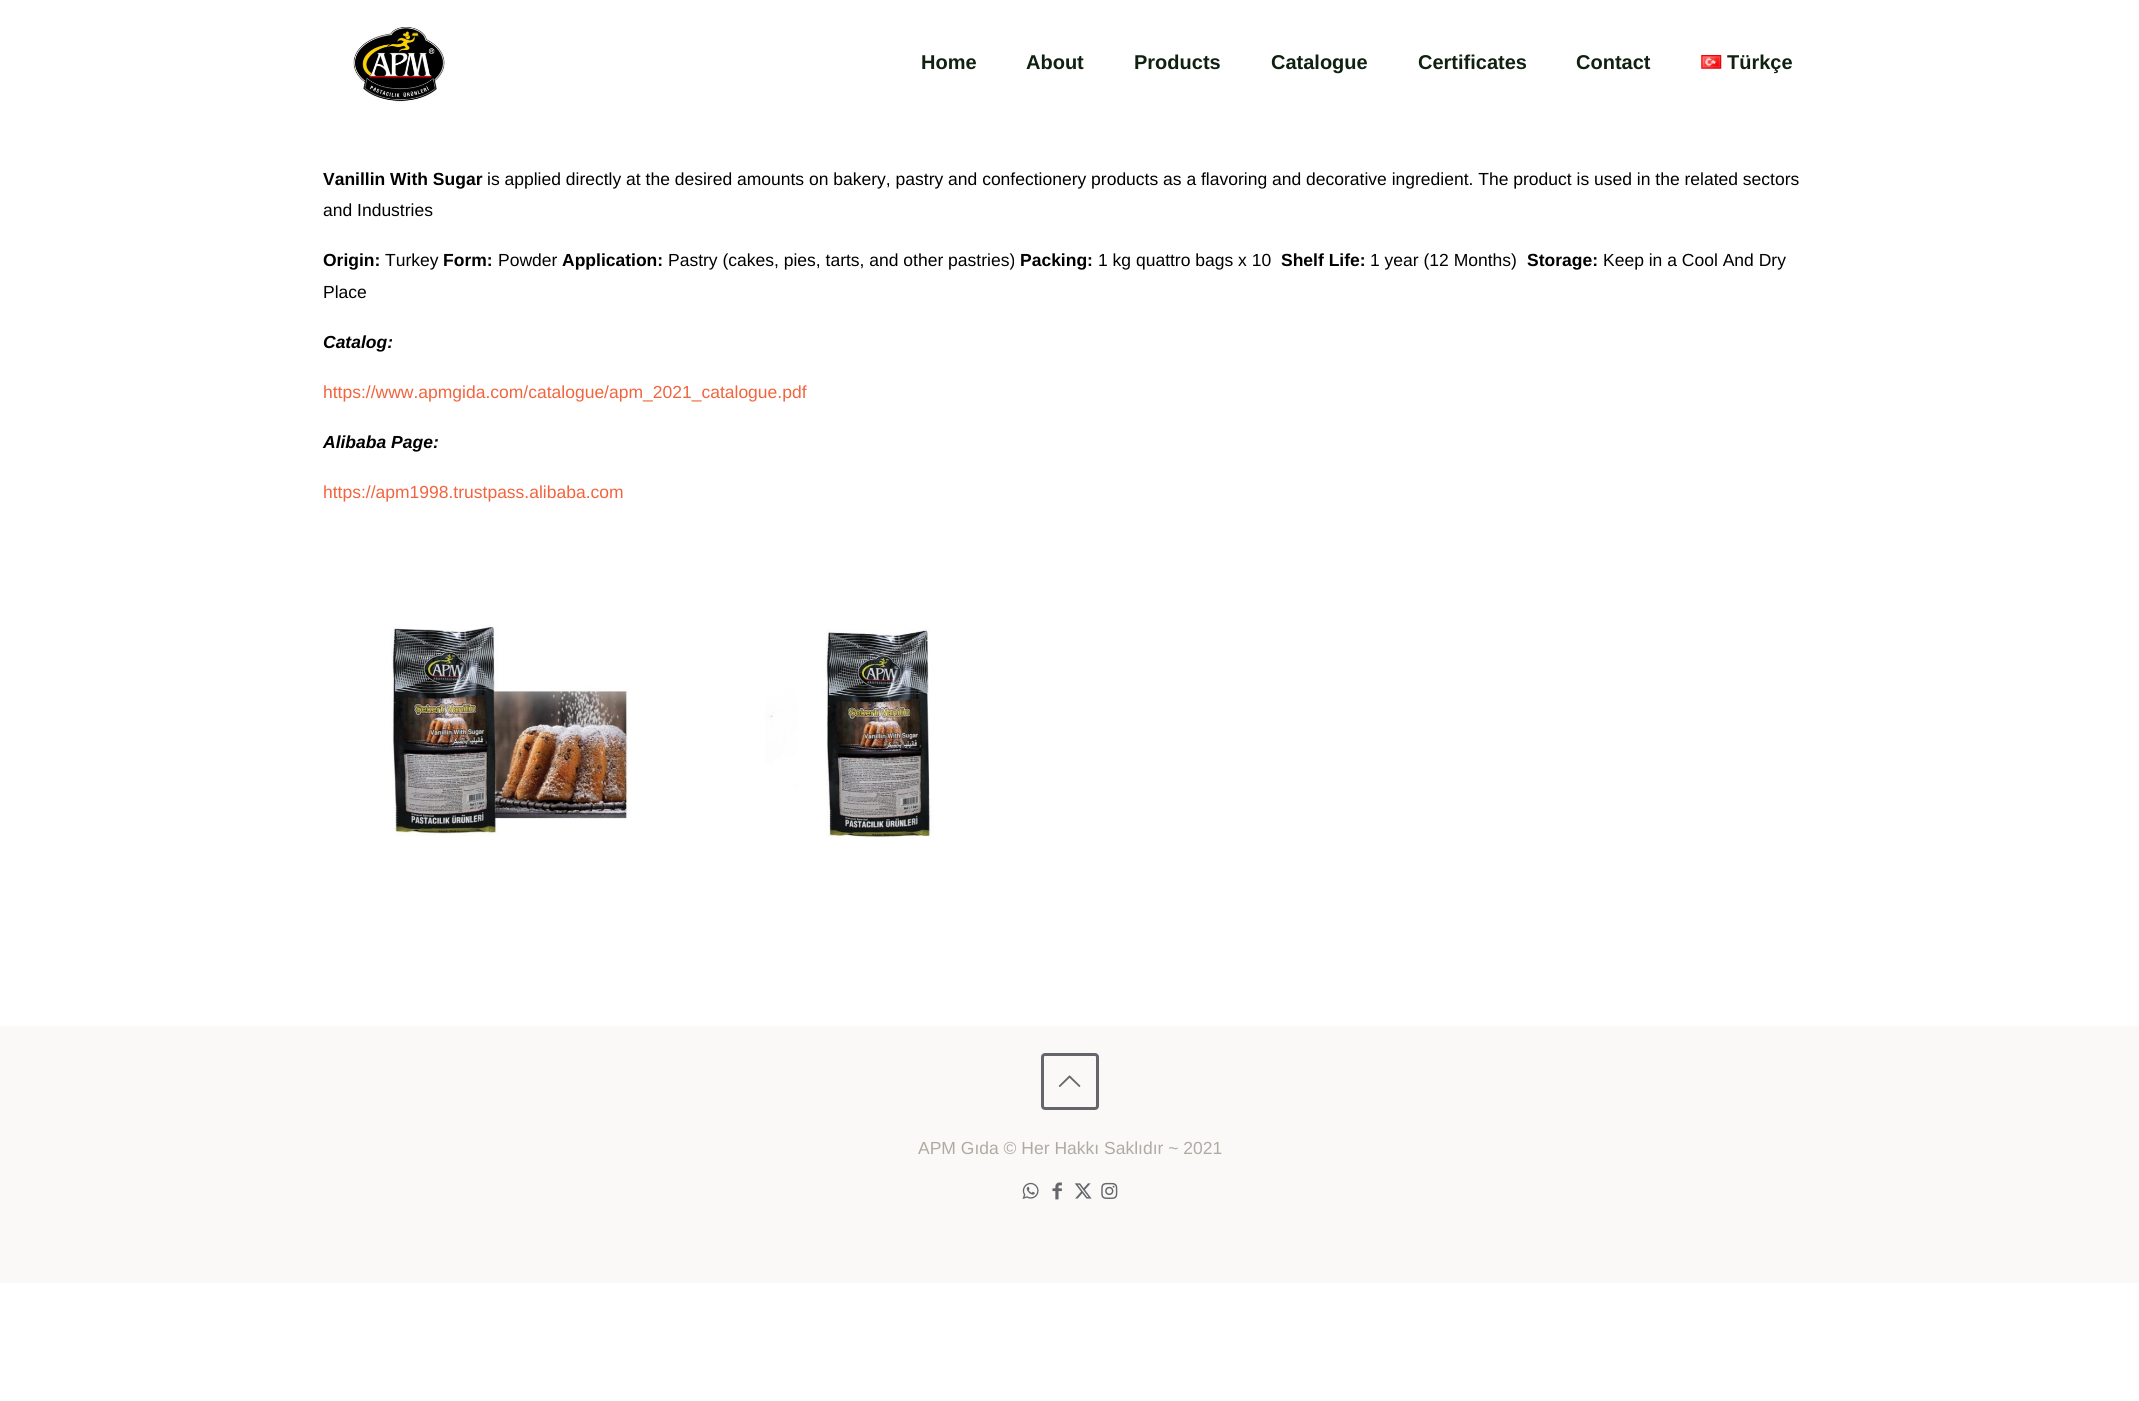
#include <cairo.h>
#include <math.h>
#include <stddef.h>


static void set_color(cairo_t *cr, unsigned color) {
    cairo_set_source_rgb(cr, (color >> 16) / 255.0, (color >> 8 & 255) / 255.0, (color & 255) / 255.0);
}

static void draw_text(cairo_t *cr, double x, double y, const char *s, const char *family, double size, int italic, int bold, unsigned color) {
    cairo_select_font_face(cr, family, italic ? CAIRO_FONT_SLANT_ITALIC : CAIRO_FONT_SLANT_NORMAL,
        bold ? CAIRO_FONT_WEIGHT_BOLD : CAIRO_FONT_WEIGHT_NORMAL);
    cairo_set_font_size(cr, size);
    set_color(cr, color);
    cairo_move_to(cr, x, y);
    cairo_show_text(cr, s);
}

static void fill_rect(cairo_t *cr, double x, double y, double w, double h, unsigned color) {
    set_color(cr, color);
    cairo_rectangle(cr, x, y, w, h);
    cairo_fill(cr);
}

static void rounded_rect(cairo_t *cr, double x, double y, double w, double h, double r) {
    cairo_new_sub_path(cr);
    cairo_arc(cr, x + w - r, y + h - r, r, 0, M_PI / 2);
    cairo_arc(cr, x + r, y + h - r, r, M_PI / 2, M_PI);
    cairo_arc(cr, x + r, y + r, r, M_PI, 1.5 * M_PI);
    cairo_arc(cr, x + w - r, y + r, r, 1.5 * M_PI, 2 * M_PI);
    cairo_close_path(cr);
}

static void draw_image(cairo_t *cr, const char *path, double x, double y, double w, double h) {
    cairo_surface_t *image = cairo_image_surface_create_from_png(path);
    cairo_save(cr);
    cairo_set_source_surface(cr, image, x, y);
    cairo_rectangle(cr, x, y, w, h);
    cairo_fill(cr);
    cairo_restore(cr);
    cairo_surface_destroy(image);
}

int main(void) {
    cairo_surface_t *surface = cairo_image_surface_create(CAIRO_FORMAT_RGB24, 2139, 1401);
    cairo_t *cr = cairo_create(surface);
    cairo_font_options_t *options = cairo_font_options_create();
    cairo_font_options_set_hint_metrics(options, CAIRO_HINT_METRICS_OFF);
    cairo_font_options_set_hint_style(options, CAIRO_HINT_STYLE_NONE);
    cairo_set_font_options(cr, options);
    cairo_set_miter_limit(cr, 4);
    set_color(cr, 0xFFFFFF);
    cairo_paint(cr);
    draw_image(cr, "assets/img1.png", 353, 27, 92, 75);
    draw_text(cr, 921, 69, "Home", "Liberation Sans", 20, 0, 1, 0x102111);
    draw_text(cr, 1026, 69, "About", "Liberation Sans", 20, 0, 1, 0x102111);
    draw_text(cr, 1134, 69, "Products", "Liberation Sans", 20, 0, 1, 0x102111);
    draw_text(cr, 1271, 69, "Catalogue", "Liberation Sans", 20, 0, 1, 0x102111);
    draw_text(cr, 1418, 69, "Certificates", "Liberation Sans", 20, 0, 1, 0x102111);
    draw_text(cr, 1576, 69, "Contact", "Liberation Sans", 20, 0, 1, 0x102111);
    draw_image(cr, "assets/img2.png", 1701, 55, 21, 14);
    draw_text(cr, 1727, 69, "Türkçe", "Liberation Sans", 20, 0, 1, 0x102111);
    draw_text(cr, 323, 185, "Vanillin With Sugar", "Liberation Sans", 17.5, 0, 1, 0x000000);
    draw_text(cr, 487, 185, "is applied directly at the desired amounts on bakery, pastry and confectionery products as a flavoring and decorative ingredient. The product is used in the related sectors", "Liberation Sans", 17.5, 0, 0, 0x000000);
    draw_text(cr, 323, 216, "and Industries", "Liberation Sans", 17.5, 0, 0, 0x000000);
    draw_text(cr, 323, 266, "Origin:", "Liberation Sans", 17.5, 0, 1, 0x000000);
    draw_text(cr, 385, 266, "Turkey", "Liberation Sans", 17.5, 0, 0, 0x000000);
    draw_text(cr, 443, 266, "Form:", "Liberation Sans", 17.5, 0, 1, 0x000000);
    draw_text(cr, 498, 266, "Powder", "Liberation Sans", 17.5, 0, 0, 0x000000);
    draw_text(cr, 562, 266, "Application:", "Liberation Sans", 17.5, 0, 1, 0x000000);
    draw_text(cr, 668, 266, "Pastry (cakes, pies, tarts, and other pastries)", "Liberation Sans", 17.5, 0, 0, 0x000000);
    draw_text(cr, 1020, 266, "Packing:", "Liberation Sans", 17.5, 0, 1, 0x000000);
    draw_text(cr, 1098, 266, "1 kg quattro bags x 10", "Liberation Sans", 17.5, 0, 0, 0x000000);
    draw_text(cr, 1281, 266, "Shelf Life:", "Liberation Sans", 17.5, 0, 1, 0x000000);
    draw_text(cr, 1370, 266, "1 year (12 Months)", "Liberation Sans", 17.5, 0, 0, 0x000000);
    draw_text(cr, 1527, 266, "Storage:", "Liberation Sans", 17.5, 0, 1, 0x000000);
    draw_text(cr, 1603, 266, "Keep in a Cool And Dry", "Liberation Sans", 17.5, 0, 0, 0x000000);
    draw_text(cr, 323, 298, "Place", "Liberation Sans", 17.5, 0, 0, 0x000000);
    draw_text(cr, 323, 348, "Catalog:", "Liberation Sans", 17.5, 1, 1, 0x000000);
    draw_text(cr, 323, 398, "https://www.apmgida.com/catalogue/apm_2021_catalogue.pdf", "Liberation Sans", 17.5, 0, 0, 0xF2643D);
    draw_text(cr, 323, 448, "Alibaba Page:", "Liberation Sans", 17.5, 1, 1, 0x000000);
    draw_text(cr, 323, 498, "https://apm1998.trustpass.alibaba.com", "Liberation Sans", 17.5, 0, 0, 0xF2643D);
    draw_image(cr, "assets/img3.png", 390, 625, 240, 211);
    draw_image(cr, "assets/img4.png", 765, 629, 169, 209);
    fill_rect(cr, 0, 1026, 2139, 257, 0xFAF9F7);
    rounded_rect(cr, 1042.5, 1054.5, 55, 54, 2.5);
    set_color(cr, 0x65666C);
    cairo_set_line_width(cr, 3);
    cairo_stroke(cr);
    draw_image(cr, "assets/img5.png", 1058, 1075, 23, 12);
    draw_text(cr, 918, 1154, "APM Gıda © Her Hakkı Saklıdır ~ 2021", "Liberation Sans", 17.5, 0, 0, 0xAFABA3);
    draw_image(cr, "assets/img6.png", 1022, 1182, 17, 17);
    draw_image(cr, "assets/img7.png", 1052, 1182, 10, 18);
    draw_image(cr, "assets/img8.png", 1074, 1183, 18, 16);
    draw_image(cr, "assets/img9.png", 1101, 1182, 17, 17);
    cairo_surface_write_to_png(surface, "output.png");
    cairo_font_options_destroy(options);
    cairo_destroy(cr);
    cairo_surface_destroy(surface);
    return 0;
}
